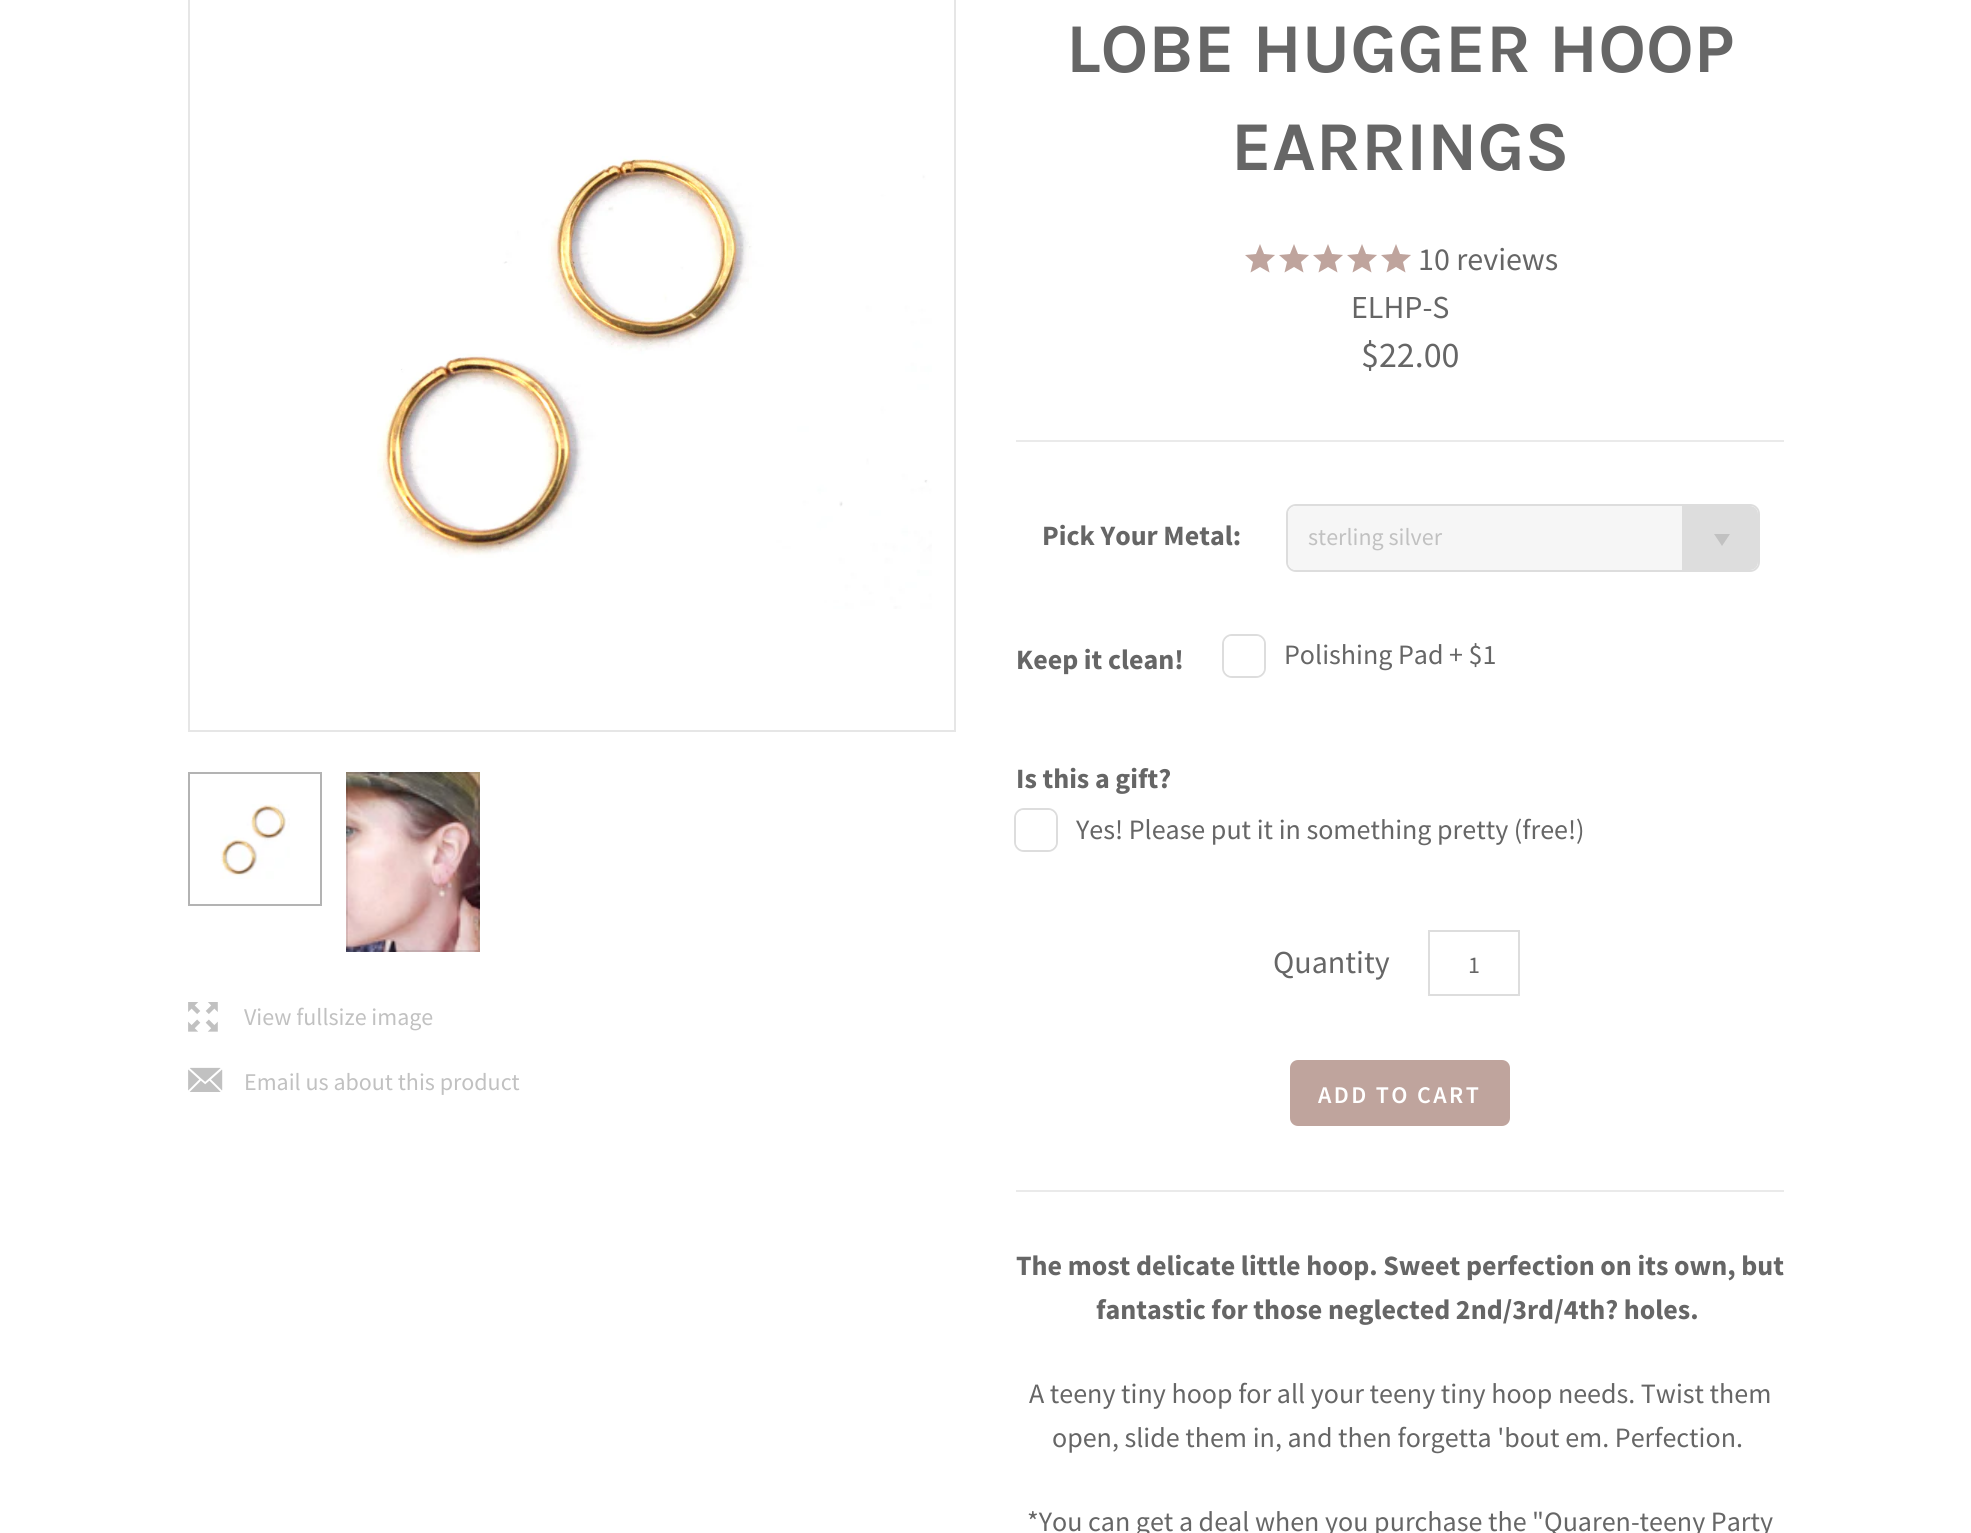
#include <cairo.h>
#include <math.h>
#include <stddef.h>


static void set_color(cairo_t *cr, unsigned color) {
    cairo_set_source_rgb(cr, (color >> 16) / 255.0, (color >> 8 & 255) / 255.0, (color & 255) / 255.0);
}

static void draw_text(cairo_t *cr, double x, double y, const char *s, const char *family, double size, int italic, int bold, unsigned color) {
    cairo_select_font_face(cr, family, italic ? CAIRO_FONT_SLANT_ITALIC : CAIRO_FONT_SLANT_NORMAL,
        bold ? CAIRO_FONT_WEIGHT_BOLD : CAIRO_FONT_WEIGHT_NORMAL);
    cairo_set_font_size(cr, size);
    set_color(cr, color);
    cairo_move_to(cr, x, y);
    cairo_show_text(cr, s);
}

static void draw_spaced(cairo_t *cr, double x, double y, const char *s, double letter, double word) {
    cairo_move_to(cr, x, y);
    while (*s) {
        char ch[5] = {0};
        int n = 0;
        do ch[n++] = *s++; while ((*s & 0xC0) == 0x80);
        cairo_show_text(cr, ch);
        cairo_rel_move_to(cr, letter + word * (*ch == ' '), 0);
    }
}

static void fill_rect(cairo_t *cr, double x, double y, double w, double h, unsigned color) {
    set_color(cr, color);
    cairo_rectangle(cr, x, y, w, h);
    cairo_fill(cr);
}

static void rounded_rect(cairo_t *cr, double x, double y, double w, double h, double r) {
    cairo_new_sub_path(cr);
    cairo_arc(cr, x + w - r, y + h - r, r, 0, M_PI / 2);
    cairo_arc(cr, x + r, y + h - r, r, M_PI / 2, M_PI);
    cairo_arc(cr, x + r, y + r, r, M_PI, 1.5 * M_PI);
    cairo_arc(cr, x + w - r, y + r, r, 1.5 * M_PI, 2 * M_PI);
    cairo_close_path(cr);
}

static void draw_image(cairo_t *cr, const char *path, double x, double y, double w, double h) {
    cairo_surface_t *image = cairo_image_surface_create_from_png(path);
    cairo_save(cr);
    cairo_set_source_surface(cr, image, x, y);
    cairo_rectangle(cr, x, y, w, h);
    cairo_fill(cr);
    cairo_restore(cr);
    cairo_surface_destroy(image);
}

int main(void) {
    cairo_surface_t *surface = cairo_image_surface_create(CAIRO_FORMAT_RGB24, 1971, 1533);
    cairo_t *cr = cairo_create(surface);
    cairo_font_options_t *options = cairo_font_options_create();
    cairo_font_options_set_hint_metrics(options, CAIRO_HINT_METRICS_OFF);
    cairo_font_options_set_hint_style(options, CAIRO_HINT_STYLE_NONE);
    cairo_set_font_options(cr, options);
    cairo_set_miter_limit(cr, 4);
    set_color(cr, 0xFFFFFF);
    cairo_paint(cr);
    draw_image(cr, "assets/img1.png", 377, 156, 555, 453);
    cairo_rectangle(cr, 189, -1, 766, 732);
    set_color(cr, 0xE6E6E6);
    cairo_stroke(cr);
    draw_image(cr, "assets/img2.png", 220, 804, 70, 75);
    cairo_rectangle(cr, 189, 773, 132, 132);
    set_color(cr, 0xB3B3B3);
    cairo_stroke(cr);
    draw_image(cr, "assets/img3.png", 346, 772, 134, 180);
    cairo_rectangle(cr, 347, 773, 132, 178);
    cairo_set_source_rgba(cr, 0, 0, 0, 0.1);
    cairo_stroke(cr);
    draw_image(cr, "assets/img4.png", 188, 1002, 30, 30);
    draw_text(cr, 244, 1025, "View fullsize image", "Source Sans Pro", 24, 0, 0, 0xC1C1C1);
    draw_image(cr, "assets/img5.png", 188, 1067, 35, 25);
    draw_text(cr, 244, 1090, "Email us about this product", "Source Sans Pro", 24, 0, 0, 0xC1C1C1);
    draw_text(cr, 1066, 72, "LOBE HUGGER HOOP", "Karla", 70, 0, 1, 0x666666);
    draw_text(cr, 1231, 170, "EARRINGS", "Karla", 70, 0, 1, 0x666666);
    set_color(cr, 0xBFA49D);
    cairo_new_path(cr);
    cairo_move_to(cr, 1260, 267);
    cairo_line_to(cr, 1250.5, 272.5);
    cairo_line_to(cr, 1253, 262);
    cairo_line_to(cr, 1245, 255);
    cairo_line_to(cr, 1256, 254);
    cairo_line_to(cr, 1260, 244);
    cairo_line_to(cr, 1264, 254);
    cairo_line_to(cr, 1275, 255);
    cairo_line_to(cr, 1267, 262);
    cairo_line_to(cr, 1269.5, 272.5);
    cairo_close_path(cr);
    cairo_fill(cr);
    cairo_new_path(cr);
    cairo_move_to(cr, 1294, 267);
    cairo_line_to(cr, 1284.5, 272.5);
    cairo_line_to(cr, 1287, 262);
    cairo_line_to(cr, 1279, 255);
    cairo_line_to(cr, 1290, 254);
    cairo_line_to(cr, 1294, 244);
    cairo_line_to(cr, 1298, 254);
    cairo_line_to(cr, 1309, 255);
    cairo_line_to(cr, 1301, 262);
    cairo_line_to(cr, 1303.5, 272.5);
    cairo_close_path(cr);
    cairo_fill(cr);
    cairo_new_path(cr);
    cairo_move_to(cr, 1328, 267);
    cairo_line_to(cr, 1318.5, 272.5);
    cairo_line_to(cr, 1321, 262);
    cairo_line_to(cr, 1313, 255);
    cairo_line_to(cr, 1324, 254);
    cairo_line_to(cr, 1328, 244);
    cairo_line_to(cr, 1332, 254);
    cairo_line_to(cr, 1343, 255);
    cairo_line_to(cr, 1335, 262);
    cairo_line_to(cr, 1337.5, 272.5);
    cairo_close_path(cr);
    cairo_fill(cr);
    cairo_new_path(cr);
    cairo_move_to(cr, 1362, 267);
    cairo_line_to(cr, 1352.5, 272.5);
    cairo_line_to(cr, 1355, 262);
    cairo_line_to(cr, 1347, 255);
    cairo_line_to(cr, 1358, 254);
    cairo_line_to(cr, 1362, 244);
    cairo_line_to(cr, 1366, 254);
    cairo_line_to(cr, 1377, 255);
    cairo_line_to(cr, 1369, 262);
    cairo_line_to(cr, 1371.5, 272.5);
    cairo_close_path(cr);
    cairo_fill(cr);
    cairo_new_path(cr);
    cairo_move_to(cr, 1396, 267);
    cairo_line_to(cr, 1386.5, 272.5);
    cairo_line_to(cr, 1389, 262);
    cairo_line_to(cr, 1381, 255);
    cairo_line_to(cr, 1392, 254);
    cairo_line_to(cr, 1396, 244);
    cairo_line_to(cr, 1400, 254);
    cairo_line_to(cr, 1411, 255);
    cairo_line_to(cr, 1403, 262);
    cairo_line_to(cr, 1405.5, 272.5);
    cairo_close_path(cr);
    cairo_fill(cr);
    draw_text(cr, 1418, 270, "10 reviews", "Source Sans Pro", 32, 0, 0, 0x666666);
    draw_text(cr, 1351, 318, "ELHP-S", "Source Sans Pro", 32, 0, 0, 0x666666);
    draw_text(cr, 1361, 367, "$22.00", "Source Sans Pro", 36, 0, 0, 0x666666);
    fill_rect(cr, 1016, 440, 768, 2, 0xEAEAEA);
    draw_text(cr, 1042, 545, "Pick Your Metal:", "Source Sans Pro", 28, 0, 1, 0x666666);
    rounded_rect(cr, 1287, 505, 472, 66, 9);
    set_color(cr, 0xDDDDDD);
    cairo_stroke(cr);
    set_color(cr, 0xF6F6F6);
    rounded_rect(cr, 1288, 506, 470, 64, 8);
    cairo_fill(cr);
    draw_text(cr, 1308, 545, "sterling silver", "Source Sans Pro", 24, 0, 0, 0xC1C1C1);
    set_color(cr, 0xDDDDDD);
    cairo_new_path(cr);
    cairo_move_to(cr, 1682, 506);
    cairo_line_to(cr, 1750, 506);
    cairo_curve_to(cr, 1754.5, 506, 1758, 509.5, 1758, 514);
    cairo_line_to(cr, 1758, 562);
    cairo_curve_to(cr, 1758, 566.5, 1754.5, 570, 1750, 570);
    cairo_line_to(cr, 1682, 570);
    cairo_close_path(cr);
    cairo_fill(cr);
    set_color(cr, 0xC1C1C1);
    cairo_new_path(cr);
    cairo_move_to(cr, 1714, 534);
    cairo_line_to(cr, 1730, 534);
    cairo_line_to(cr, 1722, 546);
    cairo_close_path(cr);
    cairo_fill(cr);
    draw_text(cr, 1016, 669, "Keep it clean!", "Source Sans Pro", 28, 0, 1, 0x666666);
    rounded_rect(cr, 1223, 635, 42, 42, 9);
    set_color(cr, 0xDDDDDD);
    cairo_stroke(cr);
    set_color(cr, 0xFFFFFF);
    rounded_rect(cr, 1224, 636, 40, 40, 8);
    cairo_fill(cr);
    draw_text(cr, 1284, 664, "Polishing Pad + $1", "Source Sans Pro", 28, 0, 0, 0x666666);
    draw_text(cr, 1016, 788, "Is this a gift?", "Source Sans Pro", 28, 0, 1, 0x666666);
    rounded_rect(cr, 1015, 809, 42, 42, 9);
    set_color(cr, 0xDDDDDD);
    cairo_stroke(cr);
    set_color(cr, 0xFFFFFF);
    rounded_rect(cr, 1016, 810, 40, 40, 8);
    cairo_fill(cr);
    draw_text(cr, 1076, 839, "Yes! Please put it in something pretty (free!)", "Source Sans Pro", 28, 0, 0, 0x666666);
    draw_text(cr, 1273, 973, "Quantity", "Source Sans Pro", 32, 0, 0, 0x666666);
    cairo_rectangle(cr, 1429, 931, 90, 64);
    set_color(cr, 0xDDDDDD);
    cairo_stroke(cr);
    draw_text(cr, 1468, 973, "1", "Source Sans Pro", 24, 0, 0, 0x666666);
    set_color(cr, 0xBFA49D);
    rounded_rect(cr, 1290, 1060, 220, 66, 8);
    cairo_fill(cr);
    cairo_select_font_face(cr, "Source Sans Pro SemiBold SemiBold", CAIRO_FONT_SLANT_NORMAL, CAIRO_FONT_WEIGHT_NORMAL);
    set_color(cr, 0xFFFFFF);
    draw_spaced(cr, 1318, 1103, "ADD TO CART", 2.4, 0);
    fill_rect(cr, 1016, 1190, 768, 2, 0xEAEAEA);
    draw_text(cr, 1016, 1275, "The most delicate little hoop. Sweet perfection on its own, but", "Source Sans Pro", 28, 0, 1, 0x666666);
    draw_text(cr, 1096, 1319, "fantastic for those neglected 2nd/3rd/4th? holes.", "Source Sans Pro", 28, 0, 1, 0x666666);
    draw_text(cr, 1029, 1403, "A teeny tiny hoop for all your teeny tiny hoop needs. Twist them", "Source Sans Pro", 28, 0, 0, 0x666666);
    draw_text(cr, 1052, 1447, "open, slide them in, and then forgetta 'bout em. Perfection.", "Source Sans Pro", 28, 0, 0, 0x666666);
    draw_text(cr, 1027, 1531, "*You can get a deal when you purchase the \"Quaren-teeny Party", "Source Sans Pro", 28, 0, 0, 0x666666);
    cairo_surface_write_to_png(surface, "output.png");
    cairo_font_options_destroy(options);
    cairo_destroy(cr);
    cairo_surface_destroy(surface);
    return 0;
}
